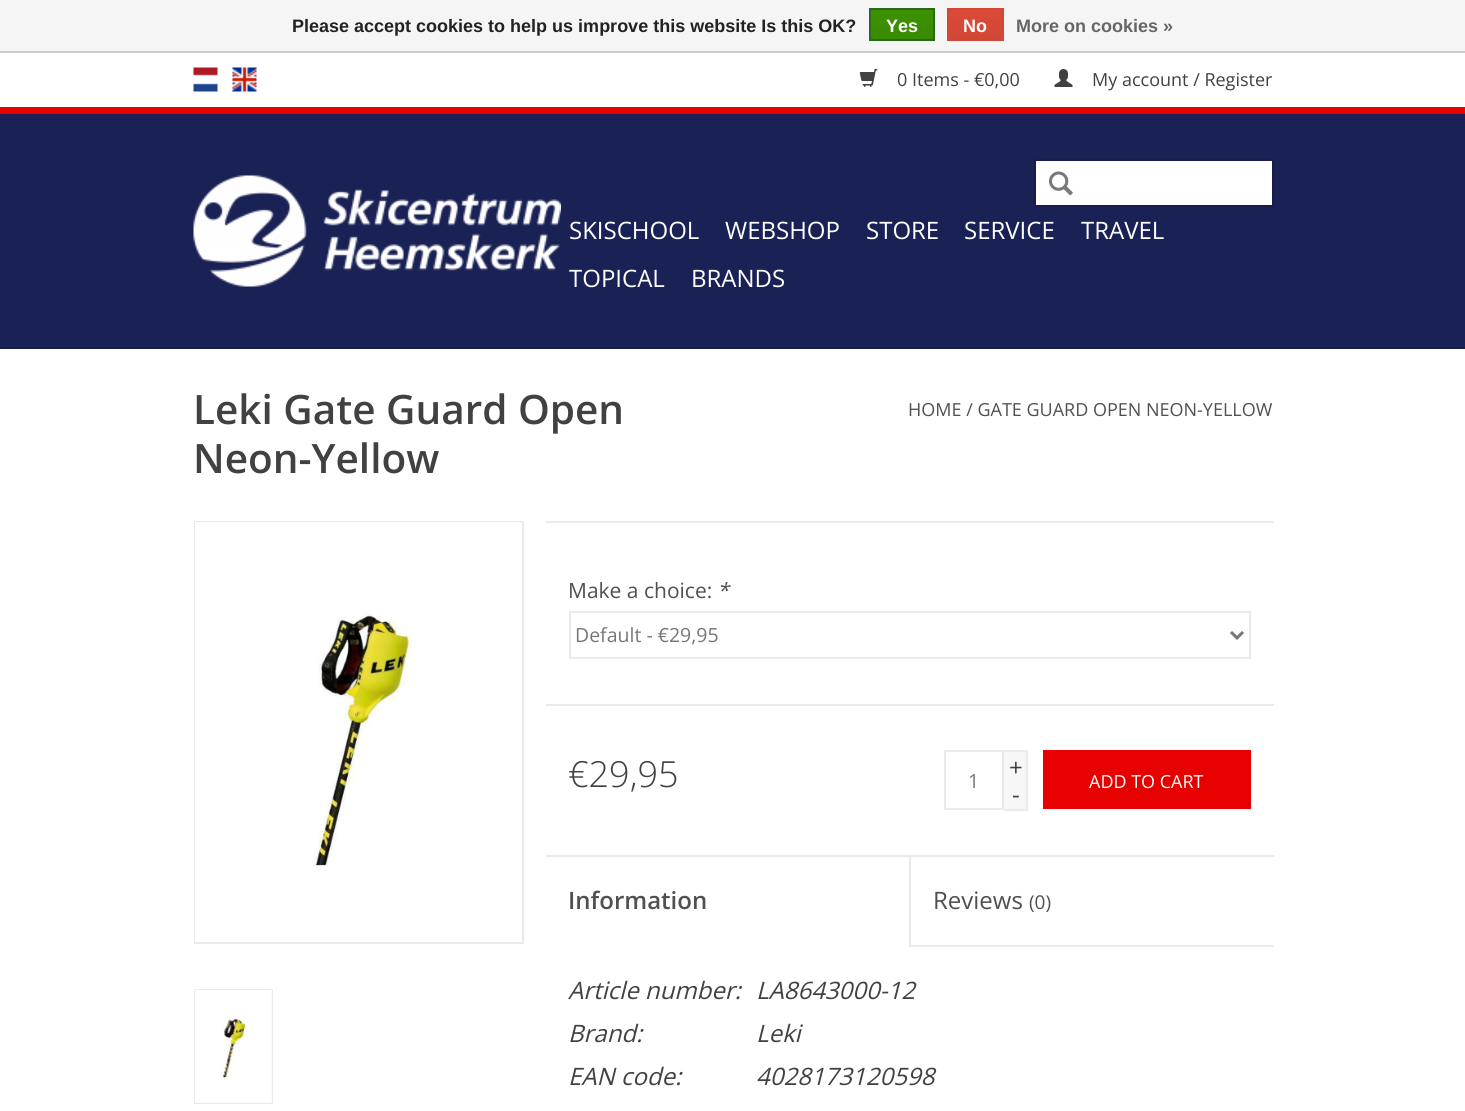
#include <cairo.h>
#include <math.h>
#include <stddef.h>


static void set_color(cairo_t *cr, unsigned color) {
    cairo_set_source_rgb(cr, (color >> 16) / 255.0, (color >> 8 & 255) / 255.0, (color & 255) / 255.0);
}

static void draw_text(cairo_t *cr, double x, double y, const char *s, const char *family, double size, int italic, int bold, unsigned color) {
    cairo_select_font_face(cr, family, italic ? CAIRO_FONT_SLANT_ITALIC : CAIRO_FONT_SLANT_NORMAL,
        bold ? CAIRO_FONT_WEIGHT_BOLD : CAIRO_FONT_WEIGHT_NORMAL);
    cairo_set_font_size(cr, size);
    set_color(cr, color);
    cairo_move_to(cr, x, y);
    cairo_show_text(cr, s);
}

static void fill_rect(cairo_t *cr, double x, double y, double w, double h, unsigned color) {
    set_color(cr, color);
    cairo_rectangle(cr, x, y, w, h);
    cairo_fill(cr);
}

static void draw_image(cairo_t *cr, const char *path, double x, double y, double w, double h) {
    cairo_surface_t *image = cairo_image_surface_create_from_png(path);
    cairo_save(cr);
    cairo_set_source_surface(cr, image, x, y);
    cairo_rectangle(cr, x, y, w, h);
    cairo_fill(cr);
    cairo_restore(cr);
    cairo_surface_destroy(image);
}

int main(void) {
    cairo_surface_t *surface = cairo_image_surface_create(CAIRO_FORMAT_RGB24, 1465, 1111);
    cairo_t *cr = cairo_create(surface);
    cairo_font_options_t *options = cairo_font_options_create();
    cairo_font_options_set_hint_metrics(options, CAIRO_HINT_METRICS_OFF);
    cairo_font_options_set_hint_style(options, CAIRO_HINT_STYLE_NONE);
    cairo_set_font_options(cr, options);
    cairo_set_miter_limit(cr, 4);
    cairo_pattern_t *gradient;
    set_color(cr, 0xFFFFFF);
    cairo_paint(cr);
    fill_rect(cr, 0, 0, 1465, 51, 0xF5F5F5);
    fill_rect(cr, 0, 51, 1465, 2, 0xCCCCCC);
    draw_text(cr, 292, 32, "Please accept cookies to help us improve this website Is this OK?", "Liberation Sans", 18, 0, 1, 0x222222);
    gradient = cairo_pattern_create_linear(902, 9, 902, 39);
    cairo_pattern_add_color_stop_rgba(gradient, 0, 0.235, 0.576, 0, 1);
    cairo_pattern_add_color_stop_rgba(gradient, 1, 0.224, 0.541, 0, 1);
    cairo_set_source(cr, gradient);
    cairo_pattern_destroy(gradient);
    cairo_rectangle(cr, 871, 10, 62, 29);
    cairo_fill(cr);
    cairo_rectangle(cr, 870, 9, 64, 31);
    set_color(cr, 0x29691D);
    cairo_stroke(cr);
    draw_text(cr, 886, 32, "Yes", "Liberation Sans", 18, 0, 1, 0xFFFFFF);
    gradient = cairo_pattern_create_linear(975, 9, 975, 39);
    cairo_pattern_add_color_stop_rgba(gradient, 0, 0.863, 0.29, 0.22, 1);
    cairo_pattern_add_color_stop_rgba(gradient, 1, 0.82, 0.282, 0.212, 1);
    cairo_set_source(cr, gradient);
    cairo_pattern_destroy(gradient);
    cairo_rectangle(cr, 949, 10, 53, 29);
    cairo_fill(cr);
    cairo_rectangle(cr, 948, 9, 55, 31);
    set_color(cr, 0xD14836);
    cairo_stroke(cr);
    draw_text(cr, 963, 32, "No", "Liberation Sans", 18, 0, 1, 0xFFFFFF);
    draw_text(cr, 1016, 32, "More on cookies »", "Liberation Sans", 18, 0, 1, 0x666666);
    fill_rect(cr, 0, 114, 1465, 233, 0x1A2155);
    fill_rect(cr, 0, 347, 1465, 2, 0x171E4E);
    fill_rect(cr, 0, 107, 1465, 7, 0xE60000);
    draw_image(cr, "assets/img1.png", 193, 67, 25, 25);
    draw_image(cr, "assets/img2.png", 232, 67, 25, 25);
    draw_image(cr, "assets/img3.png", 859, 69, 19, 18);
    draw_text(cr, 897, 86, "0 Items - €0,00", "Open Sans", 18, 0, 0, 0x414141);
    draw_image(cr, "assets/img4.png", 1054, 69, 19, 18);
    draw_text(cr, 1092, 86, "My account / Register", "Open Sans", 18, 0, 0, 0x414141);
    draw_image(cr, "assets/img5.png", 193, 175, 368, 112);
    set_color(cr, 0xFFFFFF);
    cairo_rectangle(cr, 1035, 160, 238, 46);
    cairo_fill_preserve(cr);
    set_color(cr, 0x171E4E);
    cairo_stroke(cr);
    draw_image(cr, "assets/img6.png", 1049, 171, 24, 25);
    draw_text(cr, 569, 239, "SKISCHOOL", "Open Sans", 24, 0, 0, 0xFFFFFF);
    draw_text(cr, 725, 239, "WEBSHOP", "Open Sans", 24, 0, 0, 0xFFFFFF);
    draw_text(cr, 866, 239, "STORE", "Open Sans", 24, 0, 0, 0xFFFFFF);
    draw_text(cr, 964, 239, "SERVICE", "Open Sans", 24, 0, 0, 0xFFFFFF);
    draw_text(cr, 1081, 239, "TRAVEL", "Open Sans", 24, 0, 0, 0xFFFFFF);
    draw_text(cr, 569, 287, "TOPICAL", "Open Sans", 24, 0, 0, 0xFFFFFF);
    draw_text(cr, 691, 287, "BRANDS", "Open Sans", 24, 0, 0, 0xFFFFFF);
    draw_text(cr, 193, 424, "Leki Gate Guard Open", "Open Sans SemiBold", 40.5, 0, 0, 0x414141);
    draw_text(cr, 193, 473, "Neon-Yellow", "Open Sans SemiBold", 40.5, 0, 0, 0x414141);
    draw_text(cr, 908, 416, "HOME / GATE GUARD OPEN NEON-YELLOW", "Open Sans", 18, 0, 0, 0x505050);
    cairo_rectangle(cr, 195, 522, 328, 421);
    set_color(cr, 0xEAEAEA);
    cairo_stroke(cr);
    draw_image(cr, "assets/img7.png", 195, 522, 327, 420);
    cairo_rectangle(cr, 195, 990, 77, 113);
    cairo_stroke(cr);
    fill_rect(cr, 195, 990, 77, 113, 0xF7F7F7);
    draw_image(cr, "assets/img8.png", 195, 990, 77, 113);
    fill_rect(cr, 546, 521, 728, 2, 0xEAEAEA);
    draw_text(cr, 568, 598, "Make a choice:", "Open Sans", 21, 0, 0, 0x505050);
    draw_text(cr, 717, 598, "*", "Open Sans", 21, 1, 0, 0x505050);
    cairo_rectangle(cr, 570, 612, 680, 46);
    set_color(cr, 0xEAEAEA);
    cairo_stroke(cr);
    cairo_new_path(cr);
    cairo_move_to(cr, 1231, 632);
    cairo_line_to(cr, 1237, 638);
    cairo_line_to(cr, 1243, 632);
    set_color(cr, 0x777777);
    cairo_set_line_width(cr, 3);
    cairo_stroke(cr);
    draw_text(cr, 575, 642, "Default - €29,95", "Open Sans", 19.5, 0, 0, 0x777777);
    fill_rect(cr, 546, 704, 728, 2, 0xEAEAEA);
    draw_text(cr, 568, 787, "€29,95", "Open Sans Light", 36, 0, 0, 0x414141);
    cairo_rectangle(cr, 945, 751, 58, 58);
    set_color(cr, 0xEAEAEA);
    cairo_set_line_width(cr, 2);
    cairo_stroke(cr);
    draw_text(cr, 968, 788, "1", "Open Sans", 19.5, 0, 0, 0x777777);
    fill_rect(cr, 1004, 752, 22, 57, 0xF7F7F7);
    fill_rect(cr, 1004, 750, 24, 2, 0xEAEAEA);
    fill_rect(cr, 1026, 750, 2, 60, 0xEAEAEA);
    fill_rect(cr, 1004, 809, 24, 2, 0xEAEAEA);
    draw_text(cr, 1009, 776, "+", "Open Sans", 24, 0, 0, 0x414141);
    draw_text(cr, 1012, 803, "-", "Open Sans", 24, 0, 0, 0x414141);
    fill_rect(cr, 1043, 750, 208, 59, 0xE60000);
    draw_text(cr, 1089, 788, "ADD TO CART", "Open Sans", 18, 0, 0, 0xFFFFFF);
    fill_rect(cr, 546, 855, 728, 2, 0xEAEAEA);
    draw_text(cr, 568, 909, "Information", "Open Sans SemiBold", 24, 0, 0, 0x505050);
    fill_rect(cr, 909, 945, 365, 2, 0xEAEAEA);
    fill_rect(cr, 909, 857, 2, 90, 0xEAEAEA);
    draw_text(cr, 933, 909, "Reviews", "Open Sans", 24, 0, 0, 0x505050);
    draw_text(cr, 1029, 909, "(0)", "Open Sans", 19, 0, 0, 0x505050);
    draw_text(cr, 568, 999, "Article number:", "Open Sans", 24, 1, 0, 0x414141);
    draw_text(cr, 756, 999, "LA8643000-12", "Open Sans", 24, 1, 0, 0x414141);
    draw_text(cr, 568, 1042, "Brand:", "Open Sans", 24, 1, 0, 0x414141);
    draw_text(cr, 756, 1042, "Leki", "Open Sans", 24, 1, 0, 0x414141);
    draw_text(cr, 568, 1085, "EAN code:", "Open Sans", 24, 1, 0, 0x414141);
    draw_text(cr, 756, 1085, "4028173120598", "Open Sans", 24, 1, 0, 0x414141);
    cairo_surface_write_to_png(surface, "output.png");
    cairo_font_options_destroy(options);
    cairo_destroy(cr);
    cairo_surface_destroy(surface);
    return 0;
}
